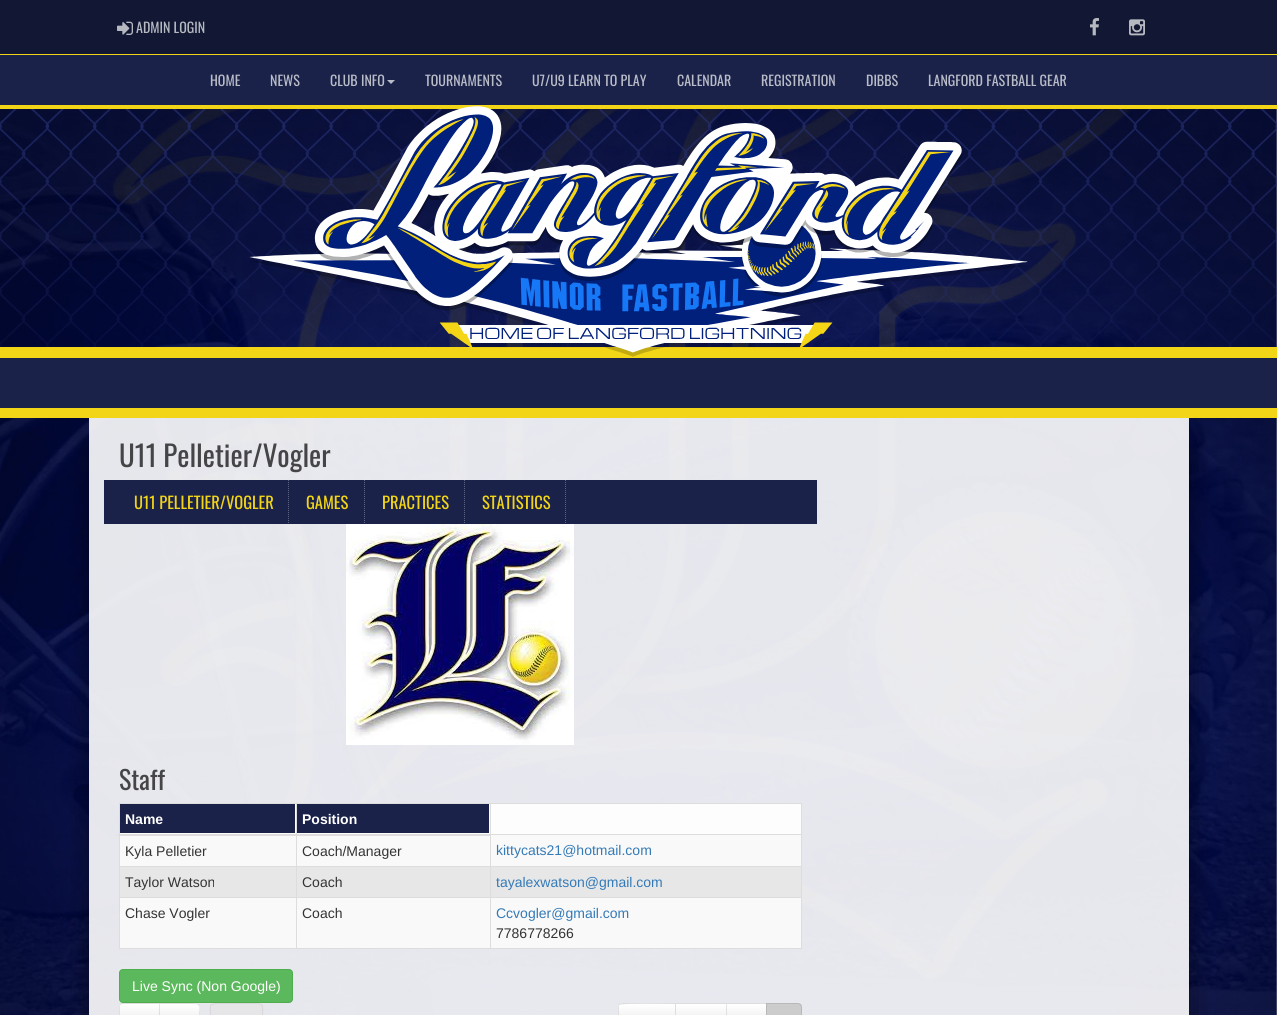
#include <cairo.h>
#include <math.h>
#include <stddef.h>


static void set_color(cairo_t *cr, unsigned color) {
    cairo_set_source_rgb(cr, (color >> 16) / 255.0, (color >> 8 & 255) / 255.0, (color & 255) / 255.0);
}

static void draw_text(cairo_t *cr, double x, double y, const char *s, const char *family, double size, int italic, int bold, unsigned color) {
    cairo_select_font_face(cr, family, italic ? CAIRO_FONT_SLANT_ITALIC : CAIRO_FONT_SLANT_NORMAL,
        bold ? CAIRO_FONT_WEIGHT_BOLD : CAIRO_FONT_WEIGHT_NORMAL);
    cairo_set_font_size(cr, size);
    set_color(cr, color);
    cairo_move_to(cr, x, y);
    cairo_show_text(cr, s);
}

static void fill_rect(cairo_t *cr, double x, double y, double w, double h, unsigned color) {
    set_color(cr, color);
    cairo_rectangle(cr, x, y, w, h);
    cairo_fill(cr);
}

static void rounded_rect(cairo_t *cr, double x, double y, double w, double h, double r) {
    cairo_new_sub_path(cr);
    cairo_arc(cr, x + w - r, y + h - r, r, 0, M_PI / 2);
    cairo_arc(cr, x + r, y + h - r, r, M_PI / 2, M_PI);
    cairo_arc(cr, x + r, y + r, r, M_PI, 1.5 * M_PI);
    cairo_arc(cr, x + w - r, y + r, r, 1.5 * M_PI, 2 * M_PI);
    cairo_close_path(cr);
}

static void draw_shadow(cairo_t *cr, double x, double y, double w, double h, double r, double blur, double alpha) {
    cairo_push_group_with_content(cr, CAIRO_CONTENT_ALPHA);
    cairo_set_operator(cr, CAIRO_OPERATOR_SOURCE);
    for (int i = 15; i >= -15 && fmin(w, h) + blur * i / 3 > 0; i -= 2) {
        double e = blur * i / 6;
        cairo_set_source_rgba(cr, 0, 0, 0, alpha * erfc((i - 1) / 8.5) / 2);
        rounded_rect(cr, x - e, y - e, w + 2 * e, h + 2 * e, fmax(0, fmin(r + e + blur * .6, fmin(w, h) / 2 + e)));
        cairo_fill(cr);
    }
    cairo_pattern_t *soft = cairo_pop_group(cr);
    cairo_mask(cr, soft);
    cairo_pattern_destroy(soft);
}

static void draw_image(cairo_t *cr, const char *path, double x, double y, double w, double h) {
    cairo_surface_t *image = cairo_image_surface_create_from_png(path);
    cairo_save(cr);
    cairo_set_source_surface(cr, image, x, y);
    cairo_rectangle(cr, x, y, w, h);
    cairo_fill(cr);
    cairo_restore(cr);
    cairo_surface_destroy(image);
}

int main(void) {
    cairo_surface_t *surface = cairo_image_surface_create(CAIRO_FORMAT_RGB24, 1277, 1015);
    cairo_t *cr = cairo_create(surface);
    cairo_font_options_t *options = cairo_font_options_create();
    cairo_font_options_set_hint_metrics(options, CAIRO_HINT_METRICS_OFF);
    cairo_font_options_set_hint_style(options, CAIRO_HINT_STYLE_NONE);
    cairo_set_font_options(cr, options);
    cairo_set_miter_limit(cr, 4);
    cairo_pattern_t *gradient;
    set_color(cr, 0xFFFFFF);
    cairo_paint(cr);
    fill_rect(cr, 0, 54, 1277, 1, 0xF3D517);
    fill_rect(cr, 0, 0, 1277, 54, 0x121833);
    draw_image(cr, "assets/img1.png", 117, 21, 16, 14);
    draw_text(cr, 136, 33, "ADMIN LOGIN", "Oswald", 14, 0, 0, 0xB8BAC2);
    draw_image(cr, "assets/img2.png", 1090, 18, 9, 18);
    draw_image(cr, "assets/img3.png", 1129, 19, 16, 17);
    fill_rect(cr, 0, 55, 1277, 50, 0x1A2249);
    fill_rect(cr, 0, 105, 1277, 4, 0xF3D517);
    draw_text(cr, 210, 86, "HOME", "Oswald", 14, 0, 0, 0xBABDC8);
    draw_text(cr, 270, 86, "NEWS", "Oswald", 14, 0, 0, 0xBABDC8);
    draw_text(cr, 330, 86, "CLUB INFO", "Oswald", 14, 0, 0, 0xBABDC8);
    cairo_new_path(cr);
    cairo_move_to(cr, 387, 80);
    cairo_line_to(cr, 395, 80);
    cairo_line_to(cr, 391, 84);
    cairo_close_path(cr);
    cairo_fill(cr);
    draw_text(cr, 425, 86, "TOURNAMENTS", "Oswald", 14, 0, 0, 0xBABDC8);
    draw_text(cr, 532, 86, "U7/U9 LEARN TO PLAY", "Oswald", 14, 0, 0, 0xBABDC8);
    draw_text(cr, 677, 86, "CALENDAR", "Oswald", 14, 0, 0, 0xBABDC8);
    draw_text(cr, 761, 86, "REGISTRATION", "Oswald", 14, 0, 0, 0xBABDC8);
    draw_text(cr, 866, 86, "DIBBS", "Oswald", 14, 0, 0, 0xBABDC8);
    draw_text(cr, 928, 86, "LANGFORD FASTBALL GEAR", "Oswald", 14, 0, 0, 0xBABDC8);
    draw_image(cr, "assets/img5.png", 0, 109, 1277, 906);
    draw_image(cr, "assets/img6.png", 0, 109, 1277, 238);
    fill_rect(cr, 0, 347, 1277, 11, 0xF3D517);
    draw_image(cr, "assets/img4.png", 249, 106, 779, 251);
    cairo_save(cr);
    cairo_rectangle(cr, 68, 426, 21, 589);
    cairo_clip(cr);
    set_color(cr, 0x000000);
    draw_shadow(cr, 89, 443, 1050, 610, 0, 12.5, 0.45);
    cairo_restore(cr);
    cairo_save(cr);
    cairo_rectangle(cr, 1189, 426, 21, 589);
    cairo_clip(cr);
    set_color(cr, 0x000000);
    draw_shadow(cr, 139, 443, 1050, 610, 0, 12.5, 0.45);
    cairo_restore(cr);
    fill_rect(cr, 0, 358, 1277, 50, 0x1A2249);
    fill_rect(cr, 0, 408, 1277, 10, 0xF3D517);
    cairo_set_source_rgba(cr, 1, 1, 1, 0.9);
    cairo_rectangle(cr, 89, 418, 1100, 597);
    cairo_fill(cr);
    draw_text(cr, 119, 467, "U11 Pelletier/Vogler", "Oswald", 29, 0, 0, 0x454547);
    fill_rect(cr, 104, 480, 713, 44, 0x1A2249);
    cairo_new_path(cr);
    cairo_move_to(cr, 288.5, 480);
    cairo_line_to(cr, 288.5, 524);
    set_color(cr, 0x5F6480);
    cairo_set_line_width(cr, 1);
    cairo_set_dash(cr, (double[]){1, 1}, 2, 0);
    cairo_stroke(cr);
    draw_text(cr, 134, 509, "U11 PELLETIER/VOGLER", "Oswald", 16.5, 0, 0, 0xF3D517);
    cairo_new_path(cr);
    cairo_move_to(cr, 364.5, 480);
    cairo_line_to(cr, 364.5, 524);
    set_color(cr, 0x5F6480);
    cairo_stroke(cr);
    draw_text(cr, 306, 509, "GAMES", "Oswald", 16.5, 0, 0, 0xF3D517);
    cairo_new_path(cr);
    cairo_move_to(cr, 464.5, 480);
    cairo_line_to(cr, 464.5, 524);
    set_color(cr, 0x5F6480);
    cairo_stroke(cr);
    draw_text(cr, 382, 509, "PRACTICES", "Oswald", 16.5, 0, 0, 0xF3D517);
    cairo_new_path(cr);
    cairo_move_to(cr, 565.5, 480);
    cairo_line_to(cr, 565.5, 524);
    set_color(cr, 0x5F6480);
    cairo_stroke(cr);
    draw_text(cr, 482, 509, "STATISTICS", "Oswald", 16.5, 0, 0, 0xF3D517);
    draw_image(cr, "assets/img7.png", 346, 524, 228, 221);
    draw_text(cr, 119, 790, "Staff", "Oswald", 26, 0, 0, 0x454547);
    fill_rect(cr, 119, 803, 683, 1, 0xDDDDDD);
    fill_rect(cr, 801, 803, 1, 146, 0xDDDDDD);
    fill_rect(cr, 119, 948, 683, 1, 0xDDDDDD);
    fill_rect(cr, 119, 803, 1, 146, 0xDDDDDD);
    cairo_set_source_rgba(cr, 1, 1, 1, 0.9);
    cairo_rectangle(cr, 120, 804, 681, 30);
    cairo_fill(cr);
    fill_rect(cr, 120, 804, 175, 29, 0x1A2249);
    draw_text(cr, 125, 824, "Name", "Liberation Sans", 14, 0, 1, 0xFFFFFF);
    fill_rect(cr, 297, 804, 192, 29, 0x1A2249);
    fill_rect(cr, 120, 835, 681, 31, 0xF9F9F9);
    fill_rect(cr, 490, 866, 312, 1, 0xDDDDDD);
    cairo_set_source_rgba(cr, 0.906, 0.906, 0.906, 0.9);
    cairo_rectangle(cr, 120, 867, 681, 30);
    cairo_fill(cr);
    fill_rect(cr, 490, 897, 312, 1, 0xDDDDDD);
    fill_rect(cr, 120, 898, 681, 50, 0xF9F9F9);
    fill_rect(cr, 490, 897, 1, 52, 0xDDDDDD);
    fill_rect(cr, 296, 897, 195, 1, 0xDDDDDD);
    fill_rect(cr, 490, 866, 1, 32, 0xDDDDDD);
    fill_rect(cr, 296, 866, 195, 1, 0xDDDDDD);
    fill_rect(cr, 296, 897, 1, 52, 0xDDDDDD);
    fill_rect(cr, 119, 897, 178, 1, 0xDDDDDD);
    fill_rect(cr, 296, 866, 1, 32, 0xDDDDDD);
    fill_rect(cr, 119, 866, 178, 1, 0xDDDDDD);
    fill_rect(cr, 296, 803, 1, 64, 0xDDDDDD);
    fill_rect(cr, 490, 834, 312, 1, 0xDDDDDD);
    fill_rect(cr, 490, 803, 1, 64, 0xDDDDDD);
    fill_rect(cr, 118, 834, 373, 2, 0xDDDDDD);
    draw_text(cr, 302, 824, "Position", "Liberation Sans", 14, 0, 1, 0xFFFFFF);
    draw_text(cr, 125, 856, "Kyla Pelletier", "Liberation Sans", 14, 0, 0, 0x333333);
    draw_text(cr, 302, 856, "Coach/Manager", "Liberation Sans", 14, 0, 0, 0x333333);
    draw_text(cr, 496, 855, "kittycats21@hotmail.com", "Liberation Sans", 14, 0, 0, 0x337AB7);
    draw_text(cr, 125, 887, "Taylor Watson", "Liberation Sans", 14, 0, 0, 0x333333);
    draw_text(cr, 302, 887, "Coach", "Liberation Sans", 14, 0, 0, 0x333333);
    draw_text(cr, 496, 887, "tayalexwatson@gmail.com", "Liberation Sans", 14, 0, 0, 0x337AB7);
    draw_text(cr, 125, 918, "Chase Vogler", "Liberation Sans", 14, 0, 0, 0x333333);
    draw_text(cr, 302, 918, "Coach", "Liberation Sans", 14, 0, 0, 0x333333);
    draw_text(cr, 496, 918, "Ccvogler@gmail.com", "Liberation Sans", 14, 0, 0, 0x337AB7);
    draw_text(cr, 496, 938, "7786778266", "Liberation Sans", 14, 0, 0, 0x333333);
    set_color(cr, 0x5CB85C);
    rounded_rect(cr, 119.5, 969.5, 173, 33, 3.5);
    cairo_fill_preserve(cr);
    set_color(cr, 0x4CAE4C);
    cairo_set_dash(cr, NULL, 0, 0);
    cairo_stroke(cr);
    draw_text(cr, 132, 991, "Live Sync (Non Google)", "Liberation Sans", 14, 0, 0, 0xFFFFFF);
    set_color(cr, 0xF5F5F5);
    cairo_new_path(cr);
    cairo_move_to(cr, 123, 1003);
    cairo_line_to(cr, 160, 1003);
    cairo_line_to(cr, 160, 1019);
    cairo_line_to(cr, 123, 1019);
    cairo_curve_to(cr, 121, 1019, 119, 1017, 119, 1015);
    cairo_line_to(cr, 119, 1007);
    cairo_curve_to(cr, 119, 1005, 121, 1003, 123, 1003);
    cairo_close_path(cr);
    cairo_fill(cr);
    cairo_save(cr);
    cairo_new_path(cr);
    cairo_move_to(cr, 123, 1003);
    cairo_line_to(cr, 160, 1003);
    cairo_line_to(cr, 160, 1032);
    cairo_line_to(cr, 123, 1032);
    cairo_curve_to(cr, 121, 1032, 119, 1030, 119, 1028);
    cairo_line_to(cr, 119, 1007);
    cairo_curve_to(cr, 119, 1005, 121, 1003, 123, 1003);
    cairo_close_path(cr);
    cairo_clip(cr);
    gradient = cairo_pattern_create_linear(140, 1004, 140, 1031);
    cairo_pattern_add_color_stop_rgba(gradient, 0, 1, 1, 1, 1);
    cairo_pattern_add_color_stop_rgba(gradient, 1, 0.902, 0.902, 0.902, 1);
    cairo_set_source(cr, gradient);
    cairo_pattern_destroy(gradient);
    cairo_rectangle(cr, 119, 1004, 40, 11);
    cairo_fill(cr);
    cairo_restore(cr);
    cairo_set_source_rgba(cr, 0, 0, 0, 0.1);
    cairo_new_path(cr);
    cairo_move_to(cr, 123, 1003);
    cairo_curve_to(cr, 122, 1003, 121, 1003.5, 120, 1004);
    cairo_line_to(cr, 121, 1005);
    cairo_curve_to(cr, 121, 1004, 122, 1004, 123, 1004);
    cairo_line_to(cr, 159, 1004);
    cairo_line_to(cr, 160, 1003);
    cairo_close_path(cr);
    cairo_fill(cr);
    cairo_new_path(cr);
    cairo_move_to(cr, 119, 1007);
    cairo_line_to(cr, 119, 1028);
    cairo_curve_to(cr, 119, 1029, 119.5, 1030, 120, 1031);
    cairo_line_to(cr, 121, 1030);
    cairo_curve_to(cr, 120, 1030, 120, 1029, 120, 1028);
    cairo_line_to(cr, 120, 1007);
    cairo_curve_to(cr, 120, 1006, 120, 1005, 121, 1005);
    cairo_line_to(cr, 120, 1004);
    cairo_curve_to(cr, 119.5, 1005, 119, 1006, 119, 1007);
    cairo_close_path(cr);
    cairo_fill(cr);
    set_color(cr, 0xF5F5F5);
    cairo_new_path(cr);
    cairo_move_to(cr, 159, 1003);
    cairo_line_to(cr, 196, 1003);
    cairo_curve_to(cr, 198, 1003, 200, 1005, 200, 1007);
    cairo_line_to(cr, 200, 1015);
    cairo_curve_to(cr, 200, 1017, 198, 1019, 196, 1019);
    cairo_line_to(cr, 159, 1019);
    cairo_close_path(cr);
    cairo_fill(cr);
    cairo_save(cr);
    cairo_new_path(cr);
    cairo_move_to(cr, 159, 1003);
    cairo_line_to(cr, 196, 1003);
    cairo_curve_to(cr, 198, 1003, 200, 1005, 200, 1007);
    cairo_line_to(cr, 200, 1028);
    cairo_curve_to(cr, 200, 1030, 198, 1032, 196, 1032);
    cairo_line_to(cr, 159, 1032);
    cairo_close_path(cr);
    cairo_clip(cr);
    gradient = cairo_pattern_create_linear(180, 1004, 180, 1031);
    cairo_pattern_add_color_stop_rgba(gradient, 0, 1, 1, 1, 1);
    cairo_pattern_add_color_stop_rgba(gradient, 1, 0.902, 0.902, 0.902, 1);
    cairo_set_source(cr, gradient);
    cairo_pattern_destroy(gradient);
    cairo_rectangle(cr, 159, 1004, 41, 11);
    cairo_fill(cr);
    cairo_restore(cr);
    cairo_set_source_rgba(cr, 0, 0, 0, 0.1);
    cairo_new_path(cr);
    cairo_move_to(cr, 159, 1003);
    cairo_line_to(cr, 160, 1004);
    cairo_line_to(cr, 190, 1004);
    cairo_curve_to(cr, 194.5, 1004, 197, 1004, 198, 1005);
    cairo_line_to(cr, 199, 1004);
    cairo_curve_to(cr, 197.5, 1003.5, 194.5, 1003, 190, 1003);
    cairo_close_path(cr);
    cairo_fill(cr);
    cairo_new_path(cr);
    cairo_move_to(cr, 200, 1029);
    cairo_line_to(cr, 199, 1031);
    cairo_line_to(cr, 198, 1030);
    cairo_curve_to(cr, 199, 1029.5, 199, 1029, 199.5, 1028);
    cairo_line_to(cr, 199, 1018);
    cairo_line_to(cr, 199.5, 1007);
    cairo_curve_to(cr, 199, 1006.5, 199, 1005.5, 198, 1005);
    cairo_line_to(cr, 199, 1004);
    cairo_line_to(cr, 200, 1006);
    cairo_close_path(cr);
    cairo_move_to(cr, 159, 1003);
    cairo_line_to(cr, 159, 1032);
    cairo_line_to(cr, 160, 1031);
    cairo_line_to(cr, 160, 1004);
    cairo_close_path(cr);
    cairo_fill(cr);
    set_color(cr, 0xE6E6E8);
    rounded_rect(cr, 210, 1003, 53, 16, 4);
    cairo_fill(cr);
    cairo_new_path(cr);
    cairo_move_to(cr, 211.5, 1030.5);
    cairo_curve_to(cr, 209.5, 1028.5, 210.5, 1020, 210.5, 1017.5);
    cairo_curve_to(cr, 210.5, 1003.5, 208, 1003.5, 221.5, 1003.5);
    cairo_line_to(cr, 251.5, 1003.5);
    cairo_curve_to(cr, 265, 1003.5, 262.5, 1003.5, 262.5, 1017.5);
    cairo_curve_to(cr, 262.5, 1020, 263.5, 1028.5, 261.5, 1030.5);
    set_color(cr, 0xD7D7D9);
    cairo_stroke(cr);
    set_color(cr, 0xF5F5F5);
    cairo_new_path(cr);
    cairo_move_to(cr, 622, 1003);
    cairo_line_to(cr, 676, 1003);
    cairo_line_to(cr, 676, 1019);
    cairo_line_to(cr, 622, 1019);
    cairo_curve_to(cr, 620, 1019, 618, 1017, 618, 1015);
    cairo_line_to(cr, 618, 1007);
    cairo_curve_to(cr, 618, 1005, 620, 1003, 622, 1003);
    cairo_close_path(cr);
    cairo_fill(cr);
    cairo_save(cr);
    cairo_new_path(cr);
    cairo_move_to(cr, 622, 1003);
    cairo_line_to(cr, 676, 1003);
    cairo_line_to(cr, 676, 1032);
    cairo_line_to(cr, 622, 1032);
    cairo_curve_to(cr, 620, 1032, 618, 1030, 618, 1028);
    cairo_line_to(cr, 618, 1007);
    cairo_curve_to(cr, 618, 1005, 620, 1003, 622, 1003);
    cairo_close_path(cr);
    cairo_clip(cr);
    gradient = cairo_pattern_create_linear(647, 1004, 647, 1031);
    cairo_pattern_add_color_stop_rgba(gradient, 0, 1, 1, 1, 1);
    cairo_pattern_add_color_stop_rgba(gradient, 1, 0.902, 0.902, 0.902, 1);
    cairo_set_source(cr, gradient);
    cairo_pattern_destroy(gradient);
    cairo_rectangle(cr, 618, 1004, 57, 11);
    cairo_fill(cr);
    cairo_restore(cr);
    cairo_set_source_rgba(cr, 0, 0, 0, 0.1);
    cairo_new_path(cr);
    cairo_move_to(cr, 622, 1003);
    cairo_line_to(cr, 619, 1004);
    cairo_line_to(cr, 620, 1005);
    cairo_curve_to(cr, 622, 1003, 669, 1004, 675, 1004);
    cairo_line_to(cr, 676, 1003);
    cairo_close_path(cr);
    cairo_fill(cr);
    cairo_new_path(cr);
    cairo_move_to(cr, 618, 1007);
    cairo_line_to(cr, 618, 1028);
    cairo_curve_to(cr, 618, 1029, 618.5, 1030, 619, 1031);
    cairo_line_to(cr, 620, 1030);
    cairo_curve_to(cr, 619, 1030, 619, 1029, 619, 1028);
    cairo_line_to(cr, 619, 1007);
    cairo_curve_to(cr, 619, 1006, 619, 1005, 620, 1005);
    cairo_line_to(cr, 619, 1004);
    cairo_curve_to(cr, 618.5, 1005, 618, 1006, 618, 1007);
    cairo_close_path(cr);
    cairo_fill(cr);
    fill_rect(cr, 675, 1003, 1, 1, 0xF5F5F5);
    gradient = cairo_pattern_create_linear(701, 1004, 701, 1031);
    cairo_pattern_add_color_stop_rgba(gradient, 0, 1, 1, 1, 1);
    cairo_pattern_add_color_stop_rgba(gradient, 1, 0.902, 0.902, 0.902, 1);
    cairo_set_source(cr, gradient);
    cairo_pattern_destroy(gradient);
    cairo_rectangle(cr, 676, 1004, 50, 11);
    cairo_fill(cr);
    set_color(cr, 0xDDDDDD);
    cairo_new_path(cr);
    cairo_move_to(cr, 675, 1003);
    cairo_line_to(cr, 727, 1003);
    cairo_line_to(cr, 726, 1004);
    cairo_line_to(cr, 676, 1004);
    cairo_close_path(cr);
    cairo_fill(cr);
    cairo_set_source_rgba(cr, 0, 0, 0, 0.1);
    cairo_new_path(cr);
    cairo_move_to(cr, 675, 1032);
    cairo_line_to(cr, 675, 1003);
    cairo_line_to(cr, 676, 1004);
    cairo_line_to(cr, 676, 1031);
    cairo_close_path(cr);
    cairo_fill(cr);
    fill_rect(cr, 726, 1003, 1, 1, 0xF5F5F5);
    gradient = cairo_pattern_create_linear(747, 1004, 747, 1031);
    cairo_pattern_add_color_stop_rgba(gradient, 0, 1, 1, 1, 1);
    cairo_pattern_add_color_stop_rgba(gradient, 1, 0.902, 0.902, 0.902, 1);
    cairo_set_source(cr, gradient);
    cairo_pattern_destroy(gradient);
    cairo_rectangle(cr, 726, 1004, 40, 11);
    cairo_fill(cr);
    set_color(cr, 0xDDDDDD);
    cairo_new_path(cr);
    cairo_move_to(cr, 726, 1003);
    cairo_line_to(cr, 767, 1003);
    cairo_line_to(cr, 766, 1004);
    cairo_line_to(cr, 727, 1004);
    cairo_close_path(cr);
    cairo_fill(cr);
    cairo_set_source_rgba(cr, 0, 0, 0, 0.1);
    cairo_new_path(cr);
    cairo_move_to(cr, 726, 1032);
    cairo_line_to(cr, 726, 1003);
    cairo_line_to(cr, 727, 1004);
    cairo_line_to(cr, 727, 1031);
    cairo_close_path(cr);
    cairo_fill(cr);
    set_color(cr, 0xCCCCCC);
    cairo_new_path(cr);
    cairo_move_to(cr, 766, 1003);
    cairo_line_to(cr, 798, 1003);
    cairo_curve_to(cr, 800, 1003, 802, 1005, 802, 1007);
    cairo_line_to(cr, 802, 1015);
    cairo_curve_to(cr, 802, 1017, 800, 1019, 798, 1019);
    cairo_line_to(cr, 766, 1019);
    cairo_close_path(cr);
    cairo_fill(cr);
    cairo_set_source_rgba(cr, 0, 0, 0, 0.1);
    cairo_new_path(cr);
    cairo_move_to(cr, 766, 1003);
    cairo_line_to(cr, 767, 1004);
    cairo_line_to(cr, 798, 1004);
    cairo_curve_to(cr, 799, 1004, 799.5, 1004.5, 800, 1005);
    cairo_line_to(cr, 801, 1004);
    cairo_curve_to(cr, 800, 1003.5, 799, 1003, 798, 1003);
    cairo_close_path(cr);
    cairo_fill(cr);
    cairo_new_path(cr);
    cairo_move_to(cr, 802, 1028);
    cairo_line_to(cr, 802, 1007);
    cairo_curve_to(cr, 802, 1006, 801.5, 1005, 801, 1004);
    cairo_line_to(cr, 800, 1005);
    cairo_curve_to(cr, 800.5, 1005.5, 801, 1006, 801, 1007);
    cairo_line_to(cr, 801, 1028);
    cairo_curve_to(cr, 801, 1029, 800.5, 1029.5, 800, 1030);
    cairo_line_to(cr, 801, 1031);
    cairo_curve_to(cr, 801.5, 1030, 802, 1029, 802, 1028);
    cairo_close_path(cr);
    cairo_move_to(cr, 766, 1003);
    cairo_line_to(cr, 766, 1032);
    cairo_line_to(cr, 767, 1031);
    cairo_line_to(cr, 767, 1004);
    cairo_close_path(cr);
    cairo_fill(cr);
    cairo_surface_write_to_png(surface, "output.png");
    cairo_font_options_destroy(options);
    cairo_destroy(cr);
    cairo_surface_destroy(surface);
    return 0;
}
